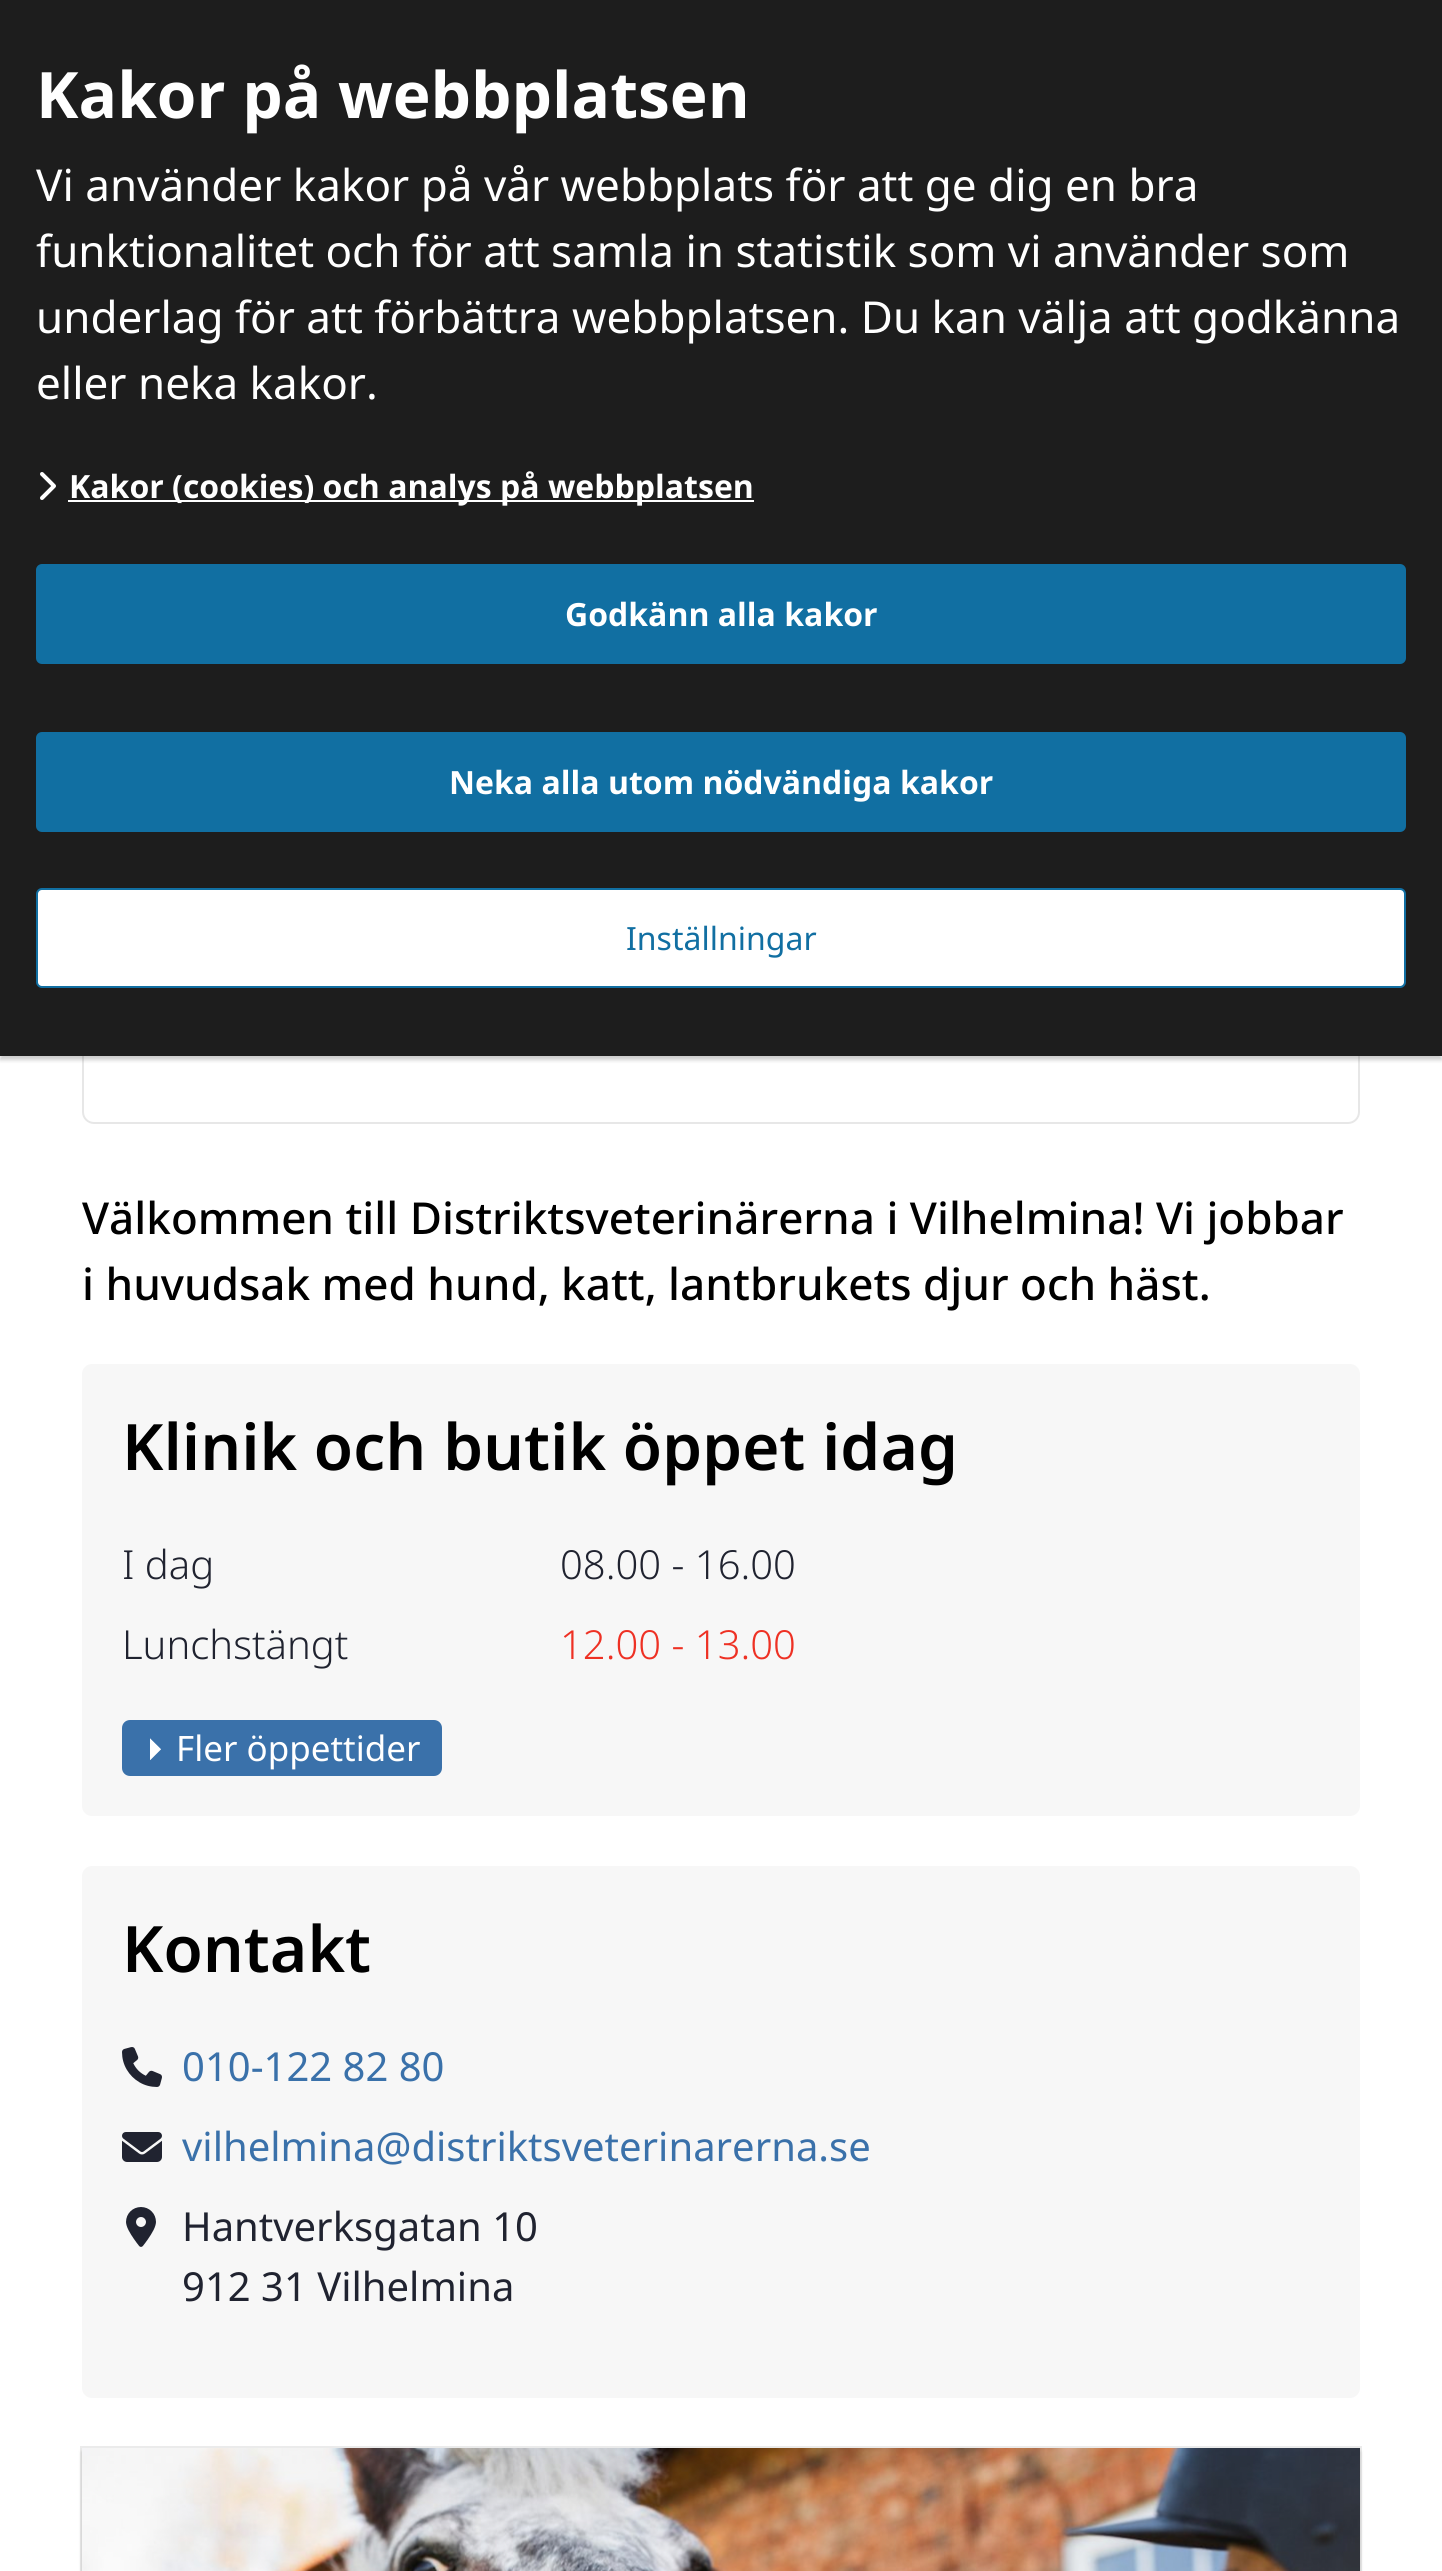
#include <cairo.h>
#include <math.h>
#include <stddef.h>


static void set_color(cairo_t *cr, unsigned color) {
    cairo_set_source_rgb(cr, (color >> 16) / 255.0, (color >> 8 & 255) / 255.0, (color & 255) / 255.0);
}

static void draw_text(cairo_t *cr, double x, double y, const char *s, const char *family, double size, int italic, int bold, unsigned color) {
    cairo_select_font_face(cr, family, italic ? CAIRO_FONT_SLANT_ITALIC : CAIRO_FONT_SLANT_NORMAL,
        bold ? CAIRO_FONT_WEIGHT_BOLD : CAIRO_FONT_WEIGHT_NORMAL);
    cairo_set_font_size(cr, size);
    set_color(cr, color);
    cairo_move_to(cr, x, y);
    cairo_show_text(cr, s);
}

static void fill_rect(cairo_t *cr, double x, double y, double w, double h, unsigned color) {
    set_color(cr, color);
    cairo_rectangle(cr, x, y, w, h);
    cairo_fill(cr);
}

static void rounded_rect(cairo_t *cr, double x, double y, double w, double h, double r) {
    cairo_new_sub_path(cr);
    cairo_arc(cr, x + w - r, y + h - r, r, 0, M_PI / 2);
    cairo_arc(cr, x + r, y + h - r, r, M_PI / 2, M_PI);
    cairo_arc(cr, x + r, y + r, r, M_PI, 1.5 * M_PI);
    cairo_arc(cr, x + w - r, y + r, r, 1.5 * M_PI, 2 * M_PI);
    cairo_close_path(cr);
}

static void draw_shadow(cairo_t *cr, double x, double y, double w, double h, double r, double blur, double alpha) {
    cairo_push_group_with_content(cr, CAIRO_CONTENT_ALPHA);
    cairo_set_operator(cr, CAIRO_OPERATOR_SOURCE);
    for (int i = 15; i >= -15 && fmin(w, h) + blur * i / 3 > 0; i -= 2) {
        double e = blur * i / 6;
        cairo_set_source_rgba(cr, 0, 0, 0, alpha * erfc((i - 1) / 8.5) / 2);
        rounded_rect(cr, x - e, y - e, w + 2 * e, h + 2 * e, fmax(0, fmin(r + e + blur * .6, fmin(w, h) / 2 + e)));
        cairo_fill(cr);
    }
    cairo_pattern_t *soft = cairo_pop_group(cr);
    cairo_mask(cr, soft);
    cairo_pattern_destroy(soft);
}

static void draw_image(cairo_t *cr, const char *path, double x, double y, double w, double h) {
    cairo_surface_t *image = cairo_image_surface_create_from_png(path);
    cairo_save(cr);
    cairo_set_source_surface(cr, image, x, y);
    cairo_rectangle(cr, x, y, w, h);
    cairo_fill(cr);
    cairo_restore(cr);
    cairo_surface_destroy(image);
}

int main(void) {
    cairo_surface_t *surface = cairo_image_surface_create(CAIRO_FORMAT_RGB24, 1442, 2571);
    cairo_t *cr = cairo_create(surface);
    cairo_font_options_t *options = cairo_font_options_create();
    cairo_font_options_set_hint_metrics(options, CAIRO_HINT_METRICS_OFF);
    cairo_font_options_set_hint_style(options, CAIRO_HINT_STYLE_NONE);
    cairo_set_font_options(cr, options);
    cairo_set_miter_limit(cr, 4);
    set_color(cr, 0xFFFFFF);
    cairo_paint(cr);
    rounded_rect(cr, 83, 507, 1276, 616, 11);
    set_color(cr, 0xE7E7E7);
    cairo_stroke(cr);
    set_color(cr, 0x000000);
    draw_shadow(cr, 0, 4, 1442, 1056, 0, 2, 0.2);
    fill_rect(cr, 0, 0, 1442, 1056, 0x1D1D1D);
    draw_text(cr, 36, 118, "Kakor på webbplatsen", "Noto Sans", 64, 0, 1, 0xFFFFFF);
    draw_text(cr, 36, 201, "Vi använder kakor på vår webbplats för att ge dig en bra", "Noto Sans", 44, 0, 0, 0xFFFFFF);
    draw_text(cr, 36, 267, "funktionalitet och för att samla in statistik som vi använder som", "Noto Sans", 44, 0, 0, 0xFFFFFF);
    draw_text(cr, 36, 333, "underlag för att förbättra webbplatsen. Du kan välja att godkänna", "Noto Sans", 44, 0, 0, 0xFFFFFF);
    draw_text(cr, 36, 399, "eller neka kakor.", "Noto Sans", 44, 0, 0, 0xFFFFFF);
    draw_image(cr, "assets/img1.png", 40, 472, 16, 28);
    fill_rect(cr, 68, 500, 686, 2, 0xFFFFFF);
    draw_text(cr, 69, 498, "Kakor (cookies) och analys på webbplatsen", "Noto Sans", 32, 0, 1, 0xFFFFFF);
    set_color(cr, 0x116FA2);
    rounded_rect(cr, 37, 565, 1368, 98, 5);
    cairo_fill_preserve(cr);
    cairo_stroke(cr);
    draw_text(cr, 565, 626, "Godkänn alla kakor", "Noto Sans", 32, 0, 1, 0xFFFFFF);
    set_color(cr, 0x116FA2);
    rounded_rect(cr, 37, 733, 1368, 98, 5);
    cairo_fill_preserve(cr);
    cairo_stroke(cr);
    draw_text(cr, 449, 794, "Neka alla utom nödvändiga kakor", "Noto Sans", 32, 0, 1, 0xFFFFFF);
    rounded_rect(cr, 37, 889, 1368, 98, 5);
    cairo_fill_preserve(cr);
    set_color(cr, 0x116FA2);
    cairo_stroke(cr);
    draw_text(cr, 626, 950, "Inställningar", "Noto Sans", 32, 0, 0, 0x116FA2);
    draw_text(cr, 82, 1234, "Välkommen till Distriktsveterinärerna i Vilhelmina! Vi jobbar", "Noto Sans Medium", 44, 0, 0, 0x000000);
    draw_text(cr, 82, 1300, "i huvudsak med hund, katt, lantbrukets djur och häst.", "Noto Sans Medium", 44, 0, 0, 0x000000);
    set_color(cr, 0xF7F7F7);
    rounded_rect(cr, 82, 1364, 1278, 452, 10);
    cairo_fill(cr);
    draw_text(cr, 122, 1470, "Klinik och butik öppet idag", "Noto Sans SemiBold", 64, 0, 0, 0x000000);
    draw_text(cr, 122, 1579, "I dag", "Noto Sans Light", 40, 0, 0, 0x202330);
    draw_text(cr, 560, 1579, "08.00 - 16.00", "Noto Sans Light", 40, 0, 0, 0x202330);
    draw_text(cr, 122, 1659, "Lunchstängt", "Noto Sans Light", 40, 0, 0, 0x202330);
    draw_text(cr, 560, 1659, "12.00 - 13.00", "Noto Sans Light", 40, 0, 0, 0xEE3124);
    set_color(cr, 0x3A71AA);
    rounded_rect(cr, 123, 1721, 318, 54, 7);
    cairo_fill_preserve(cr);
    cairo_stroke(cr);
    draw_image(cr, "assets/img2.png", 150, 1738, 11, 22);
    draw_text(cr, 176, 1761, "Fler öppettider", "Noto Sans", 35, 0, 0, 0xFFFFFF);
    set_color(cr, 0xF7F7F7);
    rounded_rect(cr, 82, 1866, 1278, 532, 10);
    cairo_fill(cr);
    draw_text(cr, 122, 1972, "Kontakt", "Noto Sans SemiBold", 64, 0, 0, 0x000000);
    draw_image(cr, "assets/img3.png", 122, 2047, 40, 40);
    draw_text(cr, 182, 2081, "010-122 82 80", "Noto Sans", 40, 0, 0, 0x3A71AA);
    draw_image(cr, "assets/img4.png", 122, 2132, 40, 30);
    draw_text(cr, 182, 2161, "vilhelmina@distriktsveterinarerna.se", "Noto Sans", 40, 0, 0, 0x3A71AA);
    draw_image(cr, "assets/img5.png", 126, 2207, 30, 40);
    draw_text(cr, 182, 2241, "Hantverksgatan 10", "Noto Sans", 40, 0, 0, 0x202330);
    draw_text(cr, 182, 2301, "912 31 Vilhelmina", "Noto Sans", 40, 0, 0, 0x202330);
    cairo_rectangle(cr, 81, 2447, 1280, 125);
    set_color(cr, 0xEBEBEB);
    cairo_stroke(cr);
    set_color(cr, 0x000000);
    draw_shadow(cr, 82, 2452, 1278, 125, 0, 2, 0.2);
    draw_image(cr, "assets/img6.png", 82, 2448, 1278, 123);
    cairo_surface_write_to_png(surface, "output.png");
    cairo_font_options_destroy(options);
    cairo_destroy(cr);
    cairo_surface_destroy(surface);
    return 0;
}
